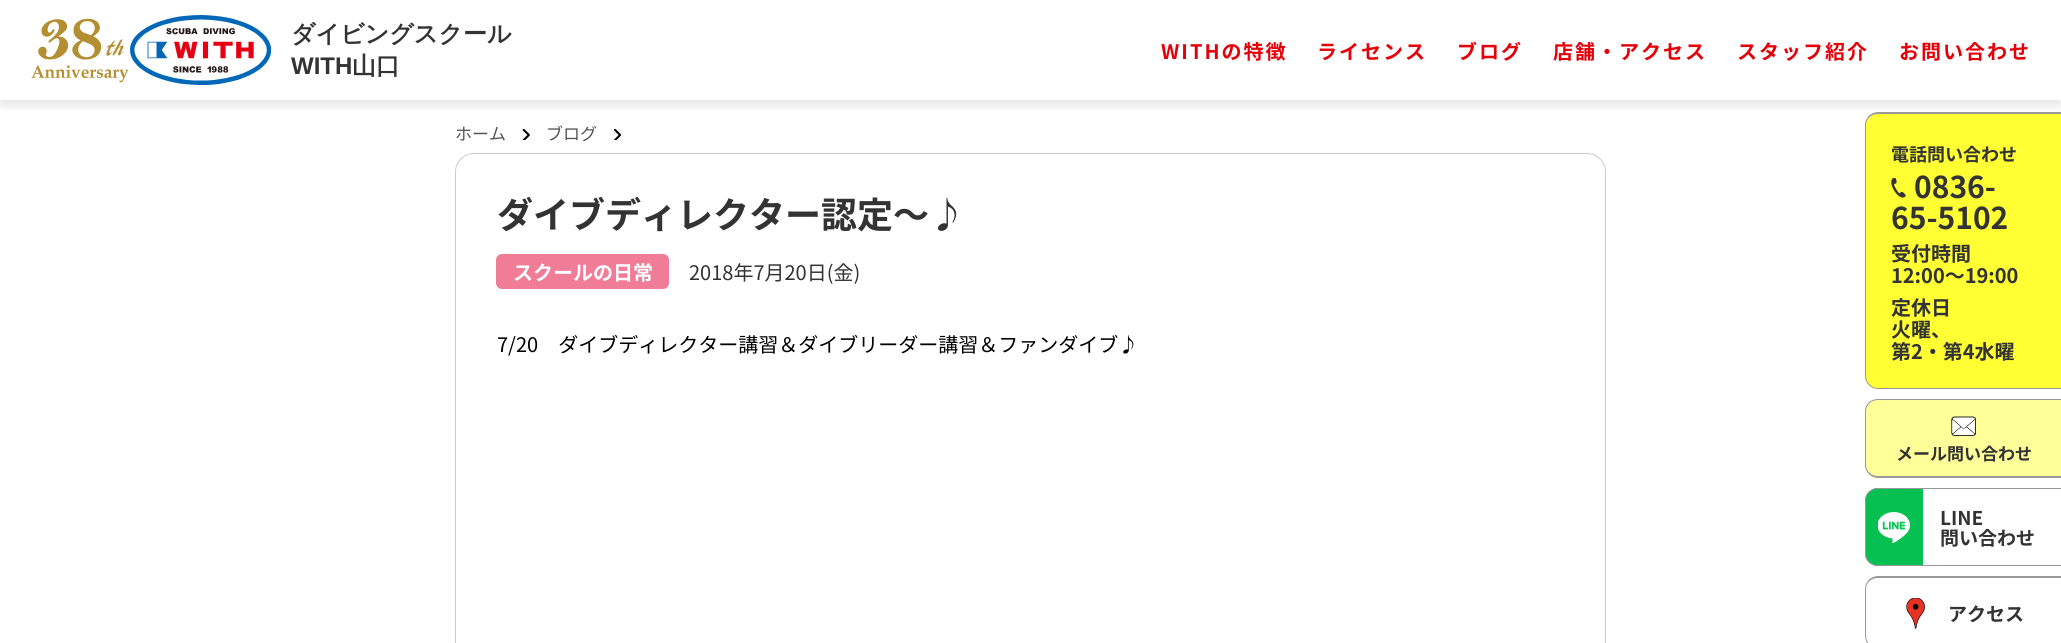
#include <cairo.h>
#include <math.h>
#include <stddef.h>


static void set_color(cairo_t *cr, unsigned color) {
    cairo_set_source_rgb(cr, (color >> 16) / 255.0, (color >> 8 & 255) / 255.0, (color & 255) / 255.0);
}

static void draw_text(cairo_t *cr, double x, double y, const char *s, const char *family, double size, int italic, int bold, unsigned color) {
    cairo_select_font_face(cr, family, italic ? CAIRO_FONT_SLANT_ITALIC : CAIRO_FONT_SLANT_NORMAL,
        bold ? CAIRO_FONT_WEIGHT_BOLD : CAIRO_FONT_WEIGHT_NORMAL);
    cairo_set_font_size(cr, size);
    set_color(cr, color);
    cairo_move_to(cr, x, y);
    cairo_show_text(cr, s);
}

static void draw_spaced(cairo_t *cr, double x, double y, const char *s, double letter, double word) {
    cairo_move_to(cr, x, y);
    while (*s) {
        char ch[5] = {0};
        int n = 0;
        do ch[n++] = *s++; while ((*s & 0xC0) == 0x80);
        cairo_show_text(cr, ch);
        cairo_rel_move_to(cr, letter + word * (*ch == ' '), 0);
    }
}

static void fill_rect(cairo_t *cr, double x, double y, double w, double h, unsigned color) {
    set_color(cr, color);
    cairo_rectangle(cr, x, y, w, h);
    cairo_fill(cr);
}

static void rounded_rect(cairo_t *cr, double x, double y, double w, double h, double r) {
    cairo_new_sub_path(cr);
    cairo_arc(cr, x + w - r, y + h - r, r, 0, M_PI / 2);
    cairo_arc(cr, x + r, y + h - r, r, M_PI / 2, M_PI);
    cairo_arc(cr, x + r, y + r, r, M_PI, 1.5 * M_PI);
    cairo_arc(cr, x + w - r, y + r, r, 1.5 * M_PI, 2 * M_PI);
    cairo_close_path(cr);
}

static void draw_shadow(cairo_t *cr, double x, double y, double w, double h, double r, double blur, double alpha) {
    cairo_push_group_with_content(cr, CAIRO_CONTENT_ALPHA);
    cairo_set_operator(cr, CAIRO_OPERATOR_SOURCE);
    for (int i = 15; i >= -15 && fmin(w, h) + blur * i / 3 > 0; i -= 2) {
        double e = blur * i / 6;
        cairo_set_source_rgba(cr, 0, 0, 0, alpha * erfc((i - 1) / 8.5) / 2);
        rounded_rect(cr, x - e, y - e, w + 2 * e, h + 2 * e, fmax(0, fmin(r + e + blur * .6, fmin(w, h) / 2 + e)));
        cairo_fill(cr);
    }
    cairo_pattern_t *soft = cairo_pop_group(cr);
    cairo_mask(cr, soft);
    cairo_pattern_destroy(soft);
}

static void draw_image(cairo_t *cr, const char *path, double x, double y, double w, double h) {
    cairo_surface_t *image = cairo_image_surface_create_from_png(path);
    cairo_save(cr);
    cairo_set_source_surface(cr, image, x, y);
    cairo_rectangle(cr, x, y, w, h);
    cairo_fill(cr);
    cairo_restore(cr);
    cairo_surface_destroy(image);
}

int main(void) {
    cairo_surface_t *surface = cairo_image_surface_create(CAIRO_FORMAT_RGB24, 2061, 643);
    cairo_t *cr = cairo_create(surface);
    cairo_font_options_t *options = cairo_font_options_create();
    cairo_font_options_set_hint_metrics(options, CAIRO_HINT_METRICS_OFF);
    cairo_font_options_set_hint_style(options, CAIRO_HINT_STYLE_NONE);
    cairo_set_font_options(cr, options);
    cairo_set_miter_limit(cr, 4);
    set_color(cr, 0xFFFFFF);
    cairo_paint(cr);
    set_color(cr, 0xFFFF33);
    cairo_new_path(cr);
    cairo_move_to(cr, 1878, 113);
    cairo_line_to(cr, 2061, 113);
    cairo_line_to(cr, 2061, 389);
    cairo_line_to(cr, 1878, 389);
    cairo_curve_to(cr, 1871, 389, 1865, 383, 1865, 376);
    cairo_line_to(cr, 1865, 126);
    cairo_curve_to(cr, 1865, 119, 1871, 113, 1878, 113);
    cairo_close_path(cr);
    cairo_fill(cr);
    set_color(cr, 0x999999);
    cairo_set_fill_rule(cr, CAIRO_FILL_RULE_EVEN_ODD);
    cairo_new_path(cr);
    cairo_move_to(cr, 1878, 112);
    cairo_line_to(cr, 2061, 112);
    cairo_line_to(cr, 2061, 389);
    cairo_line_to(cr, 1878, 389);
    cairo_curve_to(cr, 1871, 389, 1865, 383, 1865, 376);
    cairo_line_to(cr, 1865, 125);
    cairo_curve_to(cr, 1865, 118, 1871, 112, 1878, 112);
    cairo_close_path(cr);
    cairo_move_to(cr, 1878, 114);
    cairo_line_to(cr, 2061, 114);
    cairo_line_to(cr, 2061, 388);
    cairo_line_to(cr, 1878, 388);
    cairo_curve_to(cr, 1871, 388, 1866, 382, 1866, 376);
    cairo_line_to(cr, 1866, 125);
    cairo_curve_to(cr, 1866, 119, 1871, 114, 1878, 114);
    cairo_close_path(cr);
    cairo_fill(cr);
    cairo_save(cr);
    cairo_set_fill_rule(cr, CAIRO_FILL_RULE_WINDING);
    cairo_rectangle(cr, 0, 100, 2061, 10);
    cairo_clip(cr);
    set_color(cr, 0x000000);
    draw_shadow(cr, 0, 6, 2061, 100, 0, 5, 0.1);
    cairo_restore(cr);
    draw_image(cr, "assets/img1.png", 31, 18, 98, 65);
    draw_image(cr, "assets/img2.png", 130, 15, 141, 70);
    draw_text(cr, 291, 42, "ダイビングスクール", "WenQuanYi Zen Hei", 24, 0, 1, 0x333333);
    draw_text(cr, 291, 74, "WITH", "Liberation Sans", 24, 0, 1, 0x333333);
    draw_text(cr, 352, 74, "山口", "WenQuanYi Zen Hei", 24, 0, 1, 0x333333);
    cairo_select_font_face(cr, "Noto Sans JP", CAIRO_FONT_SLANT_NORMAL, CAIRO_FONT_WEIGHT_BOLD);
    cairo_set_font_size(cr, 20);
    set_color(cr, 0xE50009);
    draw_spaced(cr, 1161, 59, "WITHの特徴", 2, 0);
    draw_spaced(cr, 1317, 59, "ライセンス", 2, 0);
    draw_spaced(cr, 1457, 59, "ブログ", 2, 0);
    draw_spaced(cr, 1553, 59, "店舗・アクセス", 2, 0);
    draw_spaced(cr, 1737, 59, "スタッフ紹介", 2, 0);
    draw_spaced(cr, 1899, 59, "お問い合わせ", 2, 0);
    draw_text(cr, 455, 140, "ホーム", "Noto Sans JP", 17, 0, 0, 0x555555);
    draw_image(cr, "assets/img3.png", 522, 129, 8, 11);
    draw_text(cr, 546, 140, "ブログ", "Noto Sans JP", 17, 0, 0, 0x555555);
    draw_image(cr, "assets/img4.png", 613, 129, 9, 11);
    rounded_rect(cr, 455.5, 153.5, 1150, 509, 18.5);
    set_color(cr, 0xCCCCCC);
    cairo_set_line_width(cr, 1);
    cairo_stroke(cr);
    draw_text(cr, 497, 228, "ダイブディレクター認定～♪", "Noto Sans JP", 36, 0, 1, 0x333333);
    set_color(cr, 0xF17C97);
    rounded_rect(cr, 496, 254, 173, 35, 6);
    cairo_fill(cr);
    draw_text(cr, 513, 280, "スクールの日常", "Noto Sans JP", 20, 0, 1, 0xFFFFFF);
    draw_text(cr, 689, 280, "2018年7月20日(金)", "Noto Sans JP", 20, 0, 0, 0x333333);
    draw_text(cr, 497, 352, "7/20　ダイブディレクター講習＆ダイブリーダー講習＆ファンダイブ♪", "Noto Sans JP", 20, 0, 0, 0x000000);
    draw_text(cr, 1891, 161, "電話問い合わせ", "Noto Sans JP", 18, 0, 1, 0x333333);
    draw_image(cr, "assets/img5.png", 1891, 178, 15, 20);
    draw_text(cr, 1914, 198, "0836-", "Noto Sans JP", 30, 0, 1, 0x333333);
    draw_text(cr, 1891, 229, "65-5102", "Noto Sans JP", 30, 0, 1, 0x333333);
    draw_text(cr, 1891, 261, "受付時間", "Noto Sans JP", 20, 0, 1, 0x333333);
    draw_text(cr, 1891, 283, "12:00～19:00", "Noto Sans JP", 20, 0, 1, 0x333333);
    draw_text(cr, 1891, 315, "定休日", "Noto Sans JP", 20, 0, 1, 0x333333);
    draw_text(cr, 1891, 337, "火曜、", "Noto Sans JP", 20, 0, 1, 0x333333);
    draw_text(cr, 1891, 359, "第2・第4水曜", "Noto Sans JP", 20, 0, 1, 0x333333);
    set_color(cr, 0xFFFF99);
    cairo_new_path(cr);
    cairo_move_to(cr, 1878, 399);
    cairo_line_to(cr, 2061, 399);
    cairo_line_to(cr, 2061, 478);
    cairo_line_to(cr, 1878, 478);
    cairo_curve_to(cr, 1871, 478, 1865, 472, 1865, 465);
    cairo_line_to(cr, 1865, 412);
    cairo_curve_to(cr, 1865, 405, 1871, 399, 1878, 399);
    cairo_close_path(cr);
    cairo_fill(cr);
    set_color(cr, 0x999999);
    cairo_new_path(cr);
    cairo_move_to(cr, 1878, 399);
    cairo_line_to(cr, 2061, 399);
    cairo_line_to(cr, 2061, 478);
    cairo_line_to(cr, 1878, 478);
    cairo_curve_to(cr, 1871, 478, 1865, 472, 1865, 465);
    cairo_line_to(cr, 1865, 411);
    cairo_curve_to(cr, 1865, 404, 1871, 399, 1878, 399);
    cairo_close_path(cr);
    cairo_move_to(cr, 1878, 400);
    cairo_line_to(cr, 2061, 400);
    cairo_line_to(cr, 2061, 476);
    cairo_line_to(cr, 1878, 476);
    cairo_curve_to(cr, 1871, 476, 1866, 471, 1866, 465);
    cairo_line_to(cr, 1866, 411);
    cairo_curve_to(cr, 1866, 405, 1871, 400, 1878, 400);
    cairo_close_path(cr);
    cairo_fill(cr);
    draw_image(cr, "assets/img6.png", 1951, 416, 25, 20);
    draw_text(cr, 1896, 460, "メール問い合わせ", "Noto Sans JP", 17, 0, 1, 0x333333);
    set_color(cr, 0x06C152);
    cairo_new_path(cr);
    cairo_move_to(cr, 1878, 488);
    cairo_line_to(cr, 2061, 488);
    cairo_line_to(cr, 2061, 566);
    cairo_line_to(cr, 1878, 566);
    cairo_curve_to(cr, 1871, 566, 1865, 560, 1865, 553);
    cairo_line_to(cr, 1865, 501);
    cairo_curve_to(cr, 1865, 494, 1871, 488, 1878, 488);
    cairo_close_path(cr);
    cairo_fill(cr);
    set_color(cr, 0x999999);
    cairo_new_path(cr);
    cairo_move_to(cr, 1878, 488);
    cairo_line_to(cr, 2061, 488);
    cairo_line_to(cr, 2061, 566);
    cairo_line_to(cr, 1878, 566);
    cairo_curve_to(cr, 1871, 566, 1865, 561, 1865, 554);
    cairo_line_to(cr, 1865, 500);
    cairo_curve_to(cr, 1865, 493, 1871, 488, 1878, 488);
    cairo_close_path(cr);
    cairo_move_to(cr, 1878, 489);
    cairo_line_to(cr, 2061, 489);
    cairo_line_to(cr, 2061, 565);
    cairo_line_to(cr, 1878, 565);
    cairo_curve_to(cr, 1871, 565, 1866, 560, 1866, 554);
    cairo_line_to(cr, 1866, 500);
    cairo_curve_to(cr, 1866, 494, 1871, 489, 1878, 489);
    cairo_close_path(cr);
    cairo_fill(cr);
    draw_image(cr, "assets/img7.png", 1878, 512, 32, 31);
    fill_rect(cr, 1923, 489, 138, 76, 0xFFFFFF);
    draw_text(cr, 1940, 525, "LINE", "Noto Sans JP", 19, 0, 1, 0x333333);
    draw_text(cr, 1940, 545, "問い合わせ", "Noto Sans JP", 19, 0, 1, 0x333333);
    set_color(cr, 0x999999);
    cairo_new_path(cr);
    cairo_move_to(cr, 1878, 576);
    cairo_line_to(cr, 2061, 576);
    cairo_line_to(cr, 2061, 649);
    cairo_line_to(cr, 1878, 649);
    cairo_curve_to(cr, 1871, 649, 1865, 643, 1865, 636);
    cairo_line_to(cr, 1865, 589);
    cairo_curve_to(cr, 1865, 582, 1871, 576, 1878, 576);
    cairo_close_path(cr);
    cairo_move_to(cr, 1878, 578);
    cairo_line_to(cr, 2061, 578);
    cairo_line_to(cr, 2061, 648);
    cairo_line_to(cr, 1878, 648);
    cairo_curve_to(cr, 1871, 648, 1866, 642, 1866, 636);
    cairo_line_to(cr, 1866, 589);
    cairo_curve_to(cr, 1866, 583, 1871, 578, 1878, 578);
    cairo_close_path(cr);
    cairo_fill(cr);
    draw_image(cr, "assets/img8.png", 1906, 598, 19, 31);
    draw_text(cr, 1948, 621, "アクセス", "Noto Sans JP", 19, 0, 1, 0x333333);
    cairo_surface_write_to_png(surface, "output.png");
    cairo_font_options_destroy(options);
    cairo_destroy(cr);
    cairo_surface_destroy(surface);
    return 0;
}
